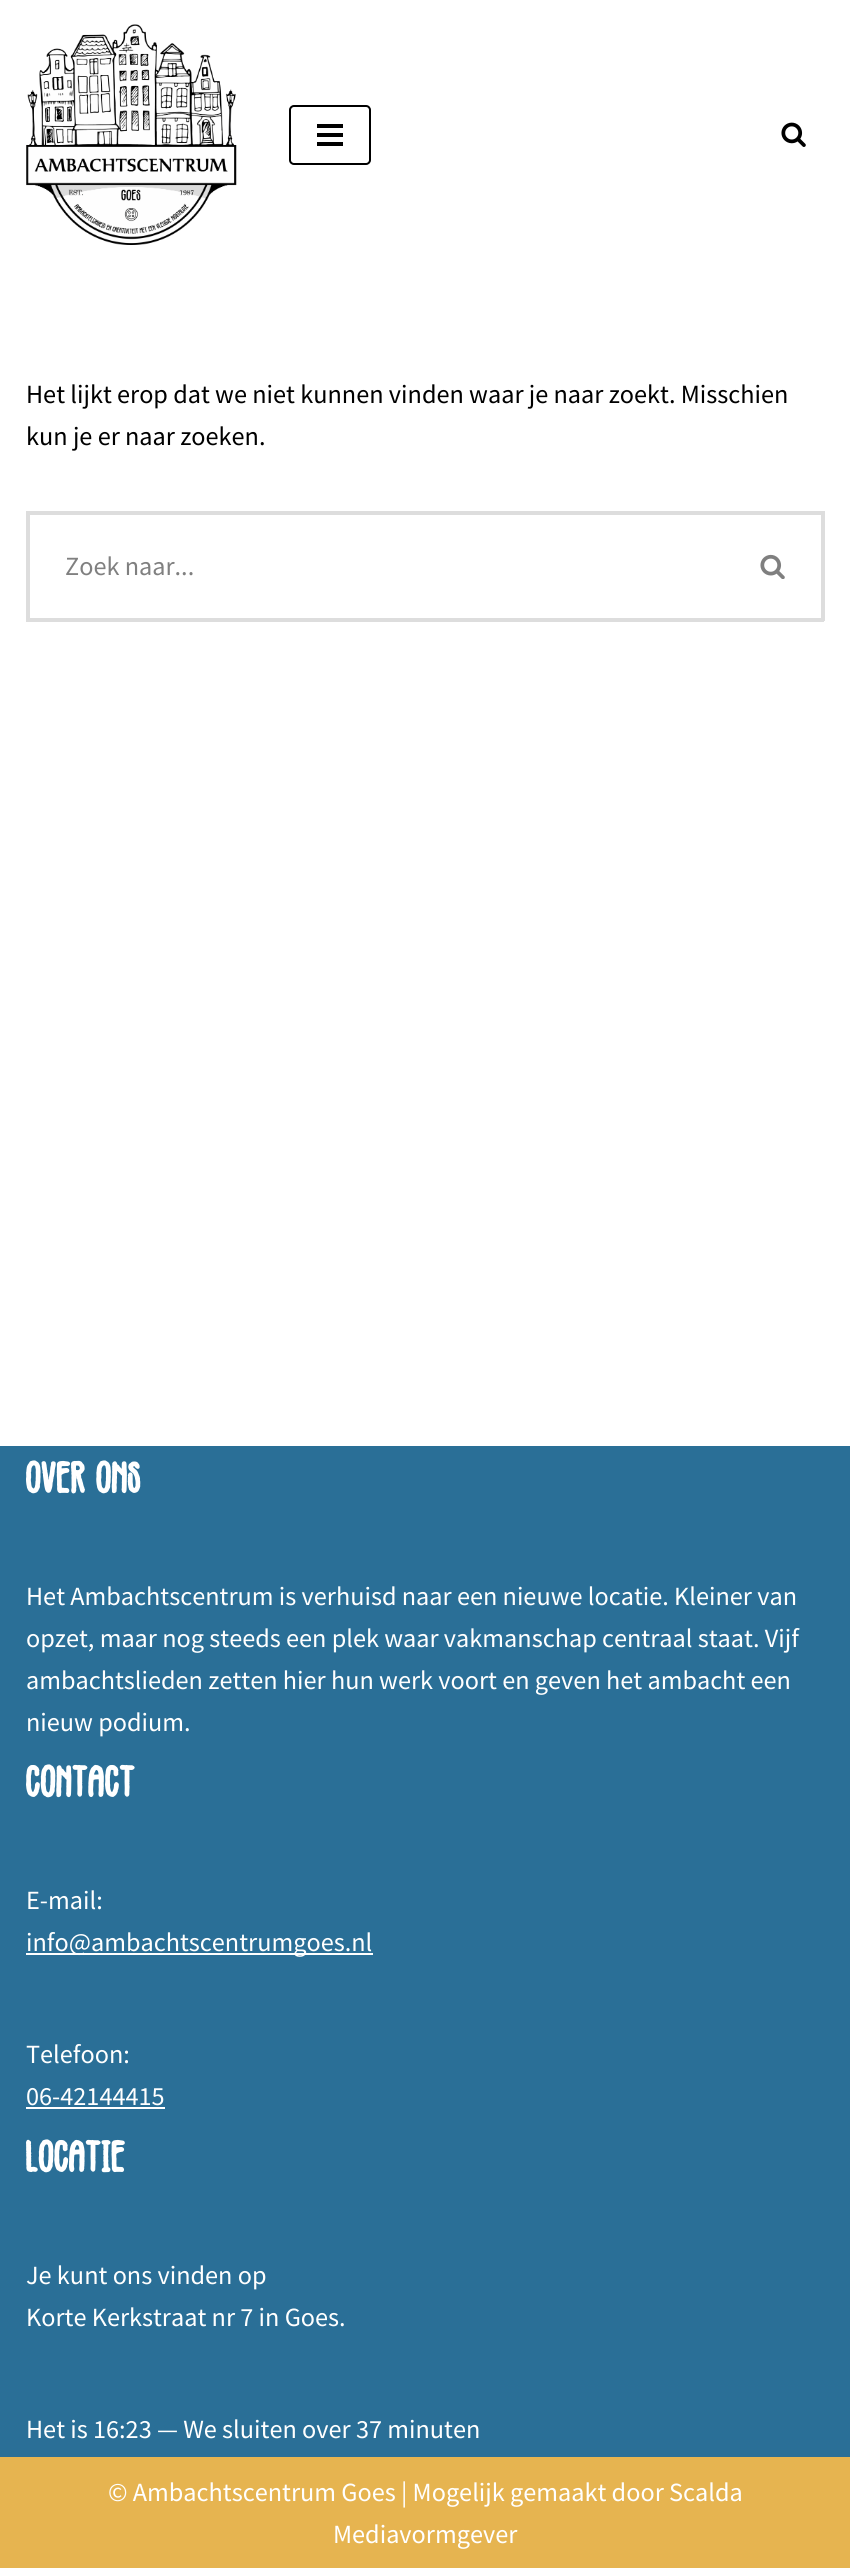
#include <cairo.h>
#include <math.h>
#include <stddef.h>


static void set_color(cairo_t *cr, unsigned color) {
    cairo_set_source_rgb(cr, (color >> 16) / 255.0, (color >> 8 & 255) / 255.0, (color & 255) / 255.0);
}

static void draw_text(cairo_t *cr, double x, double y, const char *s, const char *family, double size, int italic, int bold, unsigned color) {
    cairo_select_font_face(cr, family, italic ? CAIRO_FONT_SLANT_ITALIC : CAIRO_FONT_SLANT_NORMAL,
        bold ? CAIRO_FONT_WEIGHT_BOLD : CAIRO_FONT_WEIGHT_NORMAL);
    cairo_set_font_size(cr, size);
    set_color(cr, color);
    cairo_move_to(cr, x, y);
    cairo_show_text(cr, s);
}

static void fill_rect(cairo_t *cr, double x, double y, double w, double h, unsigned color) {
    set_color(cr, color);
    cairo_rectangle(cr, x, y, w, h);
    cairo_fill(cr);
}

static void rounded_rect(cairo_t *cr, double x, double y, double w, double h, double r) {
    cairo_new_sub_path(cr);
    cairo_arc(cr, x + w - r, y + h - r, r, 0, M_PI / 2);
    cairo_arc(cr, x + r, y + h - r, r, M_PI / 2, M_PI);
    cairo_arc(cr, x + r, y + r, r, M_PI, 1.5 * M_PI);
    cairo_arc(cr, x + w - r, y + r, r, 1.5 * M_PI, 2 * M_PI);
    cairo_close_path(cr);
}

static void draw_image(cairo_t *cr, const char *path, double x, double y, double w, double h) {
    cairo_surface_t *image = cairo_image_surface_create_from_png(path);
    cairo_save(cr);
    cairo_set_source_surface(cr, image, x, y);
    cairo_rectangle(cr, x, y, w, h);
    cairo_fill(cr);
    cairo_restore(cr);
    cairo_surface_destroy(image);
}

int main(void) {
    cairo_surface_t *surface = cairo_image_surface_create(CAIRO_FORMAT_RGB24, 850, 2568);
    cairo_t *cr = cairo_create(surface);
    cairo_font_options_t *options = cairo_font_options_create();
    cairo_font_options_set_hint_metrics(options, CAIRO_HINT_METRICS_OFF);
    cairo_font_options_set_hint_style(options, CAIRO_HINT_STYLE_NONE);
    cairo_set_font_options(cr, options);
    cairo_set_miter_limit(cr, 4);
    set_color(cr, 0xFFFFFF);
    cairo_paint(cr);
    draw_image(cr, "assets/img1.png", 26, 24, 211, 221);
    rounded_rect(cr, 290, 106, 80, 58, 4);
    set_color(cr, 0x000000);
    cairo_stroke(cr);
    fill_rect(cr, 317, 124, 26, 4, 0x000000);
    fill_rect(cr, 317, 133, 26, 4, 0x000000);
    fill_rect(cr, 317, 142, 26, 4, 0x000000);
    draw_image(cr, "assets/img2.png", 781, 122, 25, 25);
    draw_text(cr, 26, 403, "Het lijkt erop dat we niet kunnen vinden waar je naar zoekt. Misschien", "Source Sans Pro", 26.25, 0, 0, 0x000000);
    draw_text(cr, 26, 445, "kun je er naar zoeken.", "Source Sans Pro", 26.25, 0, 0, 0x000000);
    fill_rect(cr, 26, 511, 798, 4, 0xDDDDDD);
    fill_rect(cr, 26, 618, 699, 4, 0xDDDDDD);
    fill_rect(cr, 26, 511, 4, 110, 0xDDDDDD);
    draw_text(cr, 65, 575, "Zoek naar...", "Source Sans Pro", 26.25, 0, 0, 0x808080);
    fill_rect(cr, 821, 511, 4, 110, 0xDDDDDD);
    fill_rect(cr, 725, 618, 99, 4, 0xDDDDDD);
    draw_image(cr, "assets/img3.png", 760, 554, 25, 25);
    fill_rect(cr, 0, 1446, 850, 1011, 0x2A6F97);
    draw_text(cr, 26, 1493, "Over ons", "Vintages", 44, 0, 1, 0xFFFFFF);
    draw_text(cr, 26, 1605, "Het Ambachtscentrum is verhuisd naar een nieuwe locatie. Kleiner van", "Source Sans Pro", 26.25, 0, 0, 0xFFFFFF);
    draw_text(cr, 26, 1647, "opzet, maar nog steeds een plek waar vakmanschap centraal staat. Vijf", "Source Sans Pro", 26.25, 0, 0, 0xFFFFFF);
    draw_text(cr, 26, 1689, "ambachtslieden zetten hier hun werk voort en geven het ambacht een", "Source Sans Pro", 26.25, 0, 0, 0xFFFFFF);
    draw_text(cr, 26, 1731, "nieuw podium.", "Source Sans Pro", 26.25, 0, 0, 0xFFFFFF);
    draw_text(cr, 26, 1797, "Contact", "Vintages", 44, 0, 1, 0xFFFFFF);
    draw_text(cr, 26, 1909, "E-mail:", "Source Sans Pro", 26.25, 0, 0, 0xFFFFFF);
    fill_rect(cr, 26, 1953, 347, 2, 0xFFFFFF);
    draw_text(cr, 26, 1951, "info@ambachtscentrumgoes.nl", "Source Sans Pro", 26.25, 0, 0, 0xFFFFFF);
    draw_text(cr, 26, 2063, "Telefoon:", "Source Sans Pro", 26.25, 0, 0, 0xFFFFFF);
    draw_text(cr, 26, 2105, "06-42144415", "Source Sans Pro", 26.25, 0, 0, 0xFFFFFF);
    fill_rect(cr, 26, 2107, 139, 2, 0xFFFFFF);
    draw_text(cr, 26, 2172, "Locatie", "Vintages", 44, 0, 1, 0xFFFFFF);
    draw_text(cr, 26, 2284, "Je kunt ons vinden op", "Source Sans Pro", 26.25, 0, 0, 0xFFFFFF);
    draw_text(cr, 26, 2326, "Korte Kerkstraat nr 7 in Goes.", "Source Sans Pro", 26.25, 0, 0, 0xFFFFFF);
    draw_text(cr, 26, 2438, "Het is 16:23 — We sluiten over 37 minuten", "Source Sans Pro", 26.25, 0, 0, 0xFFFFFF);
    fill_rect(cr, 0, 2457, 850, 111, 0xE6B450);
    draw_text(cr, 108, 2501, "© Ambachtscentrum Goes | Mogelijk gemaakt door Scalda", "Source Sans Pro", 26.25, 0, 0, 0xFFFFFF);
    draw_text(cr, 333, 2543, "Mediavormgever", "Source Sans Pro", 26.25, 0, 0, 0xFFFFFF);
    cairo_surface_write_to_png(surface, "output.png");
    cairo_font_options_destroy(options);
    cairo_destroy(cr);
    cairo_surface_destroy(surface);
    return 0;
}
